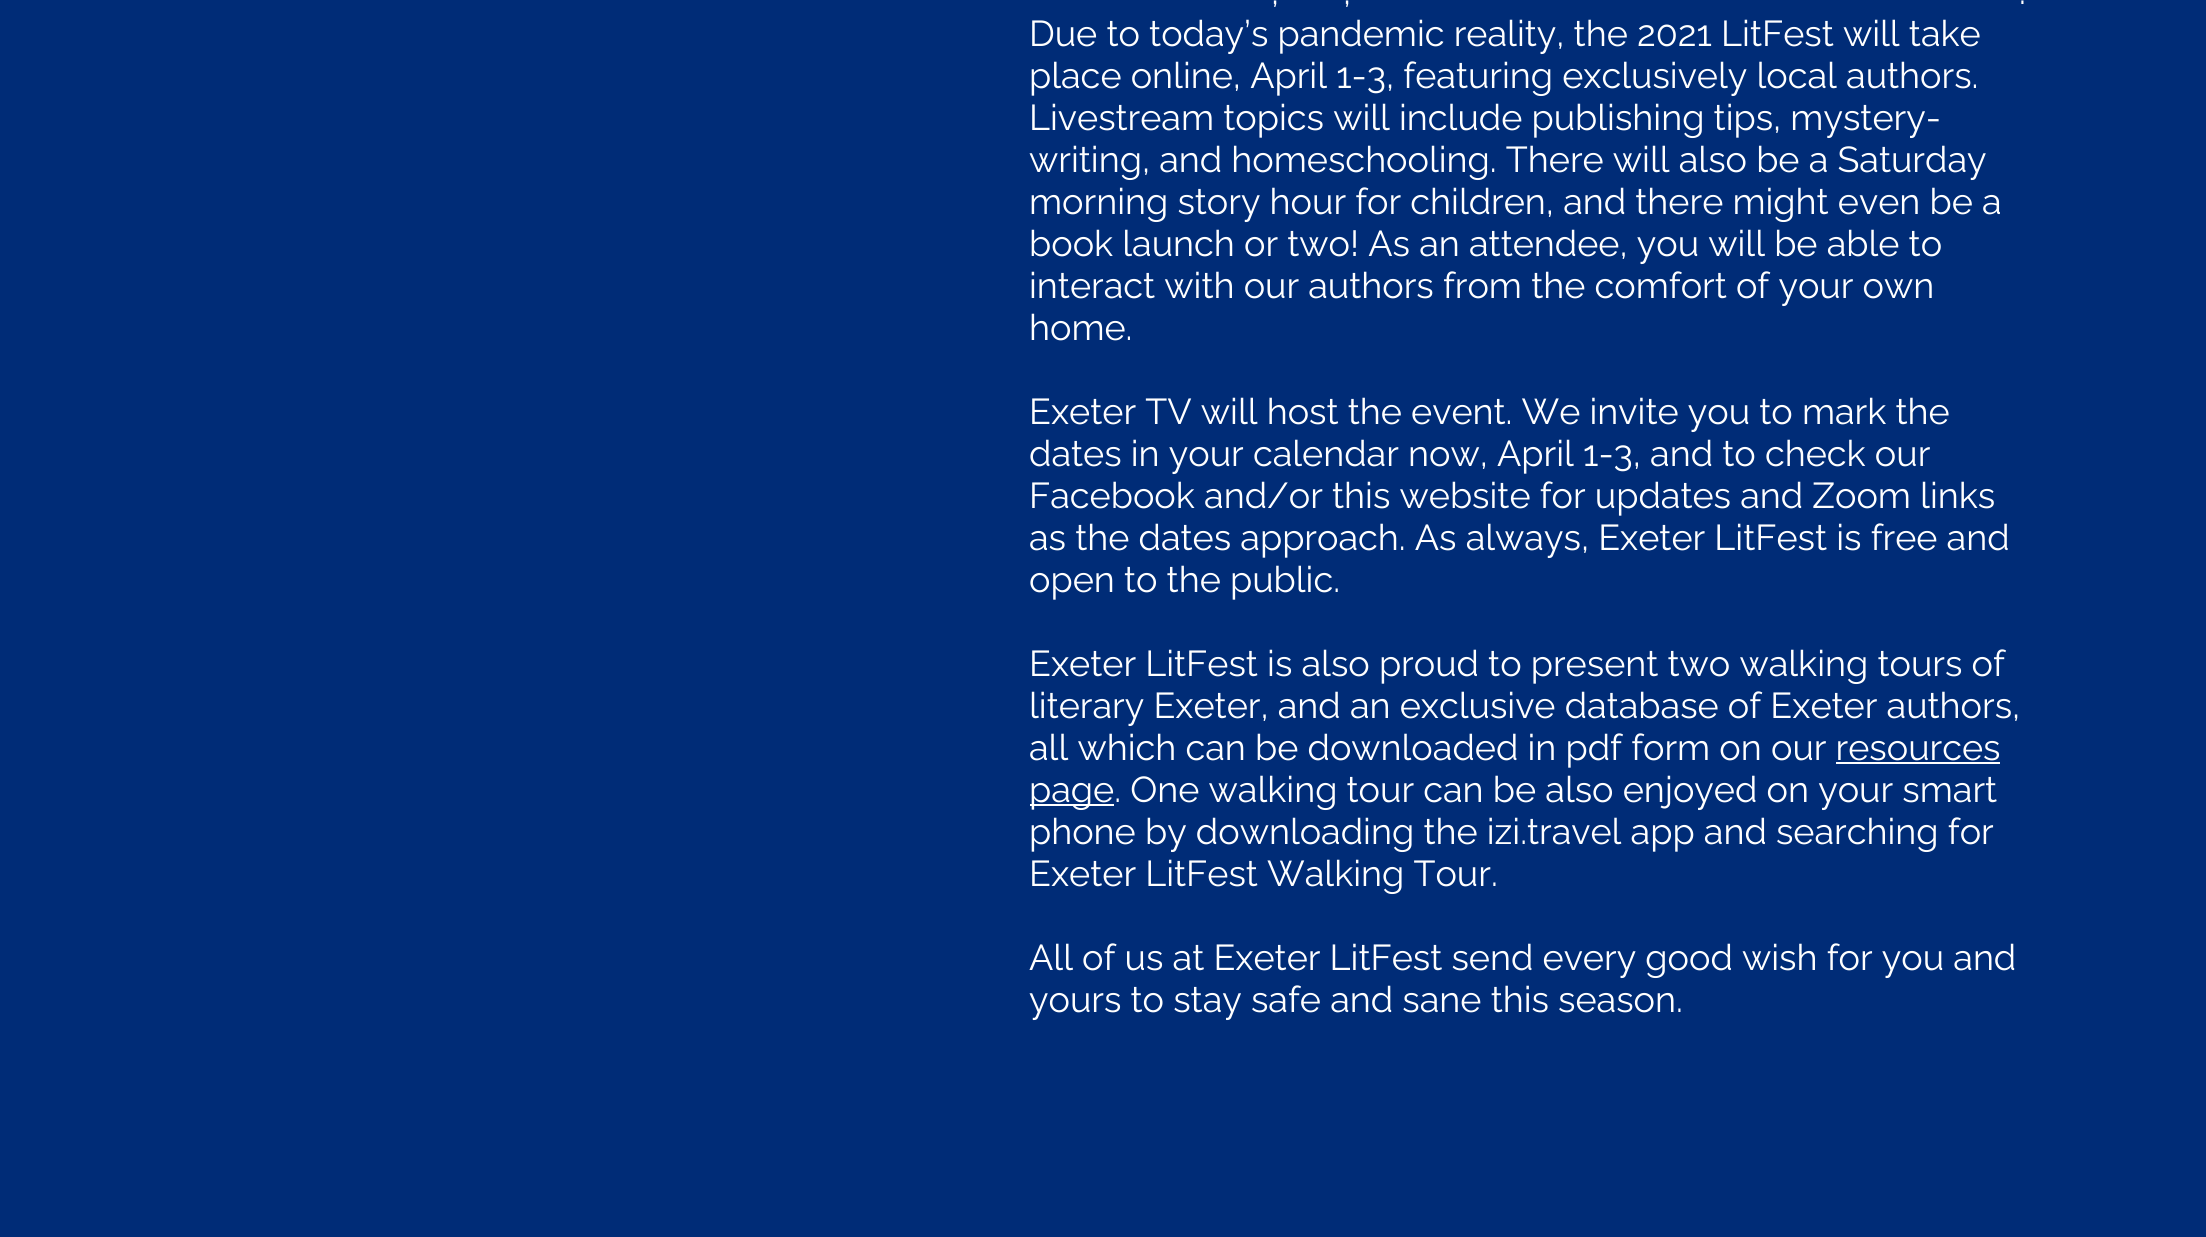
#include <cairo.h>
#include <math.h>
#include <stddef.h>


static void set_color(cairo_t *cr, unsigned color) {
    cairo_set_source_rgb(cr, (color >> 16) / 255.0, (color >> 8 & 255) / 255.0, (color & 255) / 255.0);
}

static void draw_text(cairo_t *cr, double x, double y, const char *s, const char *family, double size, int italic, int bold, unsigned color) {
    cairo_select_font_face(cr, family, italic ? CAIRO_FONT_SLANT_ITALIC : CAIRO_FONT_SLANT_NORMAL,
        bold ? CAIRO_FONT_WEIGHT_BOLD : CAIRO_FONT_WEIGHT_NORMAL);
    cairo_set_font_size(cr, size);
    set_color(cr, color);
    cairo_move_to(cr, x, y);
    cairo_show_text(cr, s);
}

static void fill_rect(cairo_t *cr, double x, double y, double w, double h, unsigned color) {
    set_color(cr, color);
    cairo_rectangle(cr, x, y, w, h);
    cairo_fill(cr);
}

int main(void) {
    cairo_surface_t *surface = cairo_image_surface_create(CAIRO_FORMAT_RGB24, 2206, 1237);
    cairo_t *cr = cairo_create(surface);
    cairo_font_options_t *options = cairo_font_options_create();
    cairo_font_options_set_hint_metrics(options, CAIRO_HINT_METRICS_OFF);
    cairo_font_options_set_hint_style(options, CAIRO_HINT_STYLE_NONE);
    cairo_set_font_options(cr, options);
    cairo_set_miter_limit(cr, 4);
    set_color(cr, 0x002C77);
    cairo_paint(cr);
    draw_text(cr, 1271, 4, ",", "Raleway", 36, 0, 0, 0xFFFFFF);
    draw_text(cr, 1343, 4, ",", "Raleway", 36, 0, 0, 0xFFFFFF);
    draw_text(cr, 2019, 4, ".", "Raleway", 36, 0, 0, 0xFFFFFF);
    draw_text(cr, 1029, 46, "Due to today’s pandemic reality, the 2021 LitFest will take", "Raleway", 36, 0, 0, 0xFFFFFF);
    draw_text(cr, 1029, 88, "place online, April 1-3, featuring exclusively local authors.", "Raleway", 36, 0, 0, 0xFFFFFF);
    draw_text(cr, 1029, 130, "Livestream topics will include publishing tips, mystery-", "Raleway", 36, 0, 0, 0xFFFFFF);
    draw_text(cr, 1029, 172, "writing, and homeschooling. There will also be a Saturday", "Raleway", 36, 0, 0, 0xFFFFFF);
    draw_text(cr, 1029, 214, "morning story hour for children, and there might even be a", "Raleway", 36, 0, 0, 0xFFFFFF);
    draw_text(cr, 1029, 256, "book launch or two! As an attendee, you will be able to", "Raleway", 36, 0, 0, 0xFFFFFF);
    draw_text(cr, 1029, 298, "interact with our authors from the comfort of your own", "Raleway", 36, 0, 0, 0xFFFFFF);
    draw_text(cr, 1029, 340, "home.", "Raleway", 36, 0, 0, 0xFFFFFF);
    draw_text(cr, 1029, 424, "Exeter TV will host the event. We invite you to mark the", "Raleway", 36, 0, 0, 0xFFFFFF);
    draw_text(cr, 1029, 466, "dates in your calendar now, April 1-3, and to check our", "Raleway", 36, 0, 0, 0xFFFFFF);
    draw_text(cr, 1029, 508, "Facebook and/or this website for updates and Zoom links", "Raleway", 36, 0, 0, 0xFFFFFF);
    draw_text(cr, 1029, 550, "as the dates approach. As always, Exeter LitFest is free and", "Raleway", 36, 0, 0, 0xFFFFFF);
    draw_text(cr, 1029, 592, "open to the public.", "Raleway", 36, 0, 0, 0xFFFFFF);
    draw_text(cr, 1029, 676, "Exeter LitFest is also proud to present two walking tours of", "Raleway", 36, 0, 0, 0xFFFFFF);
    draw_text(cr, 1029, 718, "literary Exeter, and an exclusive database of Exeter authors,", "Raleway", 36, 0, 0, 0xFFFFFF);
    draw_text(cr, 1029, 760, "all which can be downloaded in pdf form on our resources", "Raleway", 36, 0, 0, 0xFFFFFF);
    fill_rect(cr, 1836, 762, 164, 2, 0xFFFFFF);
    fill_rect(cr, 1030, 804, 84, 2, 0xFFFFFF);
    draw_text(cr, 1029, 802, "page. One walking tour can be also enjoyed on your smart", "Raleway", 36, 0, 0, 0xFFFFFF);
    draw_text(cr, 1029, 844, "phone by downloading the izi.travel app and searching for", "Raleway", 36, 0, 0, 0xFFFFFF);
    draw_text(cr, 1029, 886, "Exeter LitFest Walking Tour.", "Raleway", 36, 0, 0, 0xFFFFFF);
    draw_text(cr, 1029, 970, "All of us at Exeter LitFest send every good wish for you and", "Raleway", 36, 0, 0, 0xFFFFFF);
    draw_text(cr, 1029, 1012, "yours to stay safe and sane this season.", "Raleway", 36, 0, 0, 0xFFFFFF);
    cairo_surface_write_to_png(surface, "output.png");
    cairo_font_options_destroy(options);
    cairo_destroy(cr);
    cairo_surface_destroy(surface);
    return 0;
}
